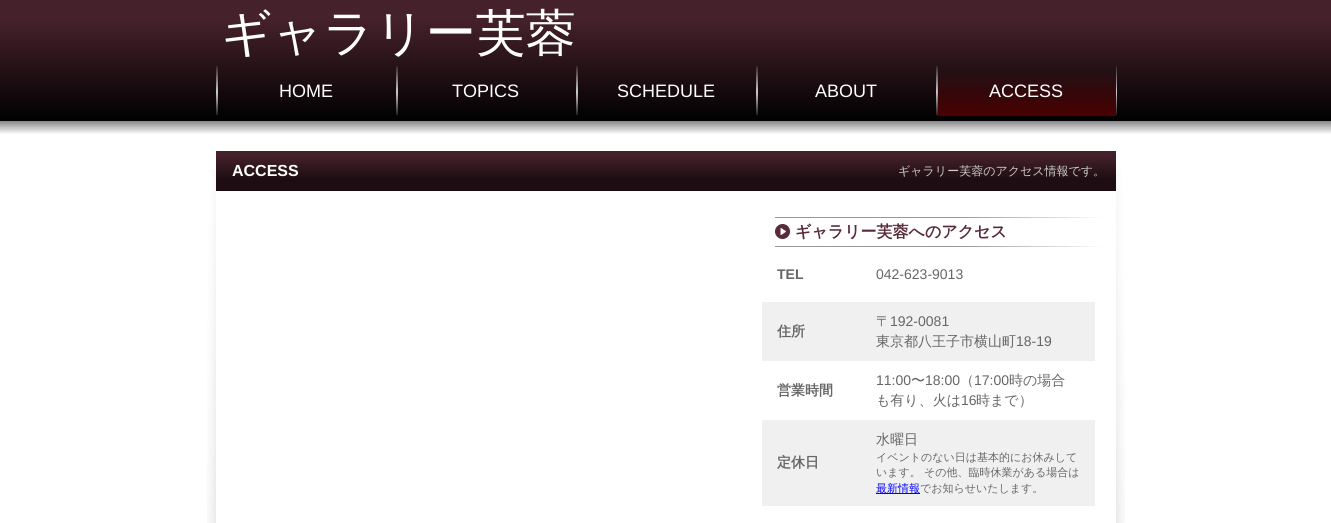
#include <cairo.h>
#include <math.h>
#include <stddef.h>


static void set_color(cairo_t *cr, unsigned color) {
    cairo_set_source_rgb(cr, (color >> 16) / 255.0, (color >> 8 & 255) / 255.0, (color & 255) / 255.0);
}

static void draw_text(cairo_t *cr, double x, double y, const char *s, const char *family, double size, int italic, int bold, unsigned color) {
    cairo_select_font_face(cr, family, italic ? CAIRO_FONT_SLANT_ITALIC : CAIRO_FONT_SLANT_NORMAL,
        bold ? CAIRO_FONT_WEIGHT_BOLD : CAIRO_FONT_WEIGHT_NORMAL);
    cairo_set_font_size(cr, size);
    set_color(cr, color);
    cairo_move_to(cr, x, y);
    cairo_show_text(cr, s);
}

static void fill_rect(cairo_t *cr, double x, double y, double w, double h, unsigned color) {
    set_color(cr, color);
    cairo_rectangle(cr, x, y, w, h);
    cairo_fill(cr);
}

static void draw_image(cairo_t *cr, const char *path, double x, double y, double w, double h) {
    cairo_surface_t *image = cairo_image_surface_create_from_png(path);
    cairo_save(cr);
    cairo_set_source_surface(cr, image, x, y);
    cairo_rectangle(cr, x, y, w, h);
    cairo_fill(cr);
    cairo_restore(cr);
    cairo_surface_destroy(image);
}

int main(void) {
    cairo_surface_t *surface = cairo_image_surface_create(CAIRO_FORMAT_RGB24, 1331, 523);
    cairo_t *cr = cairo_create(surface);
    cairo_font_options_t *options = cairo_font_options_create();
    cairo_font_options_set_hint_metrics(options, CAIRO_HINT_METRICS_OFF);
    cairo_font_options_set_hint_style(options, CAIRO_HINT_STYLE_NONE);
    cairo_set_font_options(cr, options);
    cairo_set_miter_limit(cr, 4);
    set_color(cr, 0xFFFFFF);
    cairo_paint(cr);
    draw_image(cr, "assets/img1.png", 0, 0, 1331, 134);
    draw_text(cr, 221, 50, "ギャラリー芙蓉", "WenQuanYi Zen Hei Medium", 50, 0, 0, 0xFFFFFF);
    draw_image(cr, "assets/img2.png", 1116, 66, 1, 49);
    draw_image(cr, "assets/img3.png", 216, 66, 2, 49);
    draw_text(cr, 279, 97, "HOME", "Liberation Sans", 18, 0, 0, 0xFFFFFF);
    draw_image(cr, "assets/img3.png", 396, 66, 2, 49);
    draw_text(cr, 452, 97, "TOPICS", "Liberation Sans", 18, 0, 0, 0xFFFFFF);
    draw_image(cr, "assets/img3.png", 576, 66, 2, 49);
    draw_text(cr, 617, 97, "SCHEDULE", "Liberation Sans", 18, 0, 0, 0xFFFFFF);
    draw_image(cr, "assets/img3.png", 756, 66, 2, 49);
    draw_text(cr, 815, 97, "ABOUT", "Liberation Sans", 18, 0, 0, 0xFFFFFF);
    draw_image(cr, "assets/img3.png", 936, 66, 2, 49);
    draw_image(cr, "assets/img4.png", 937, 73, 179, 43);
    draw_text(cr, 989, 97, "ACCESS", "Liberation Sans", 18, 0, 0, 0xFFFFFF);
    draw_image(cr, "assets/img7.png", 207, 169, 918, 354);
    draw_image(cr, "assets/img5.png", 216, 151, 900, 40);
    draw_text(cr, 232, 176, "ACCESS", "Liberation Sans", 16, 0, 1, 0xFFFFFF);
    draw_text(cr, 898, 175, "ギャラリー芙蓉のアクセス情報です。", "WenQuanYi Zen Hei Medium", 12, 0, 0, 0xCCCCCC);
    draw_image(cr, "assets/img6.png", 775, 217, 327, 30);
    draw_text(cr, 795, 237, "ギャラリー芙蓉へのアクセス", "WenQuanYi Zen Hei", 16, 0, 1, 0x572B38);
    draw_text(cr, 777, 279, "TEL", "Liberation Sans", 14, 0, 1, 0x666666);
    draw_text(cr, 876, 279, "042-623-9013", "Liberation Sans", 14, 0, 0, 0x666666);
    fill_rect(cr, 762, 302, 333, 59, 0xF0F0F0);
    draw_text(cr, 777, 336, "住所", "WenQuanYi Zen Hei", 14, 0, 1, 0x666666);
    draw_text(cr, 876, 326, "〒", "WenQuanYi Zen Hei Medium", 14, 0, 0, 0x666666);
    draw_text(cr, 890, 326, "192-0081", "Liberation Sans", 14, 0, 0, 0x666666);
    draw_text(cr, 876, 346, "東京都八王子市横山町", "WenQuanYi Zen Hei Medium", 14, 0, 0, 0x666666);
    draw_text(cr, 1016, 346, "18-19", "Liberation Sans", 14, 0, 0, 0x666666);
    draw_text(cr, 777, 395, "営業時間", "WenQuanYi Zen Hei", 14, 0, 1, 0x666666);
    draw_text(cr, 876, 385, "11:00", "Liberation Sans", 14, 0, 0, 0x666666);
    draw_text(cr, 911, 385, "〜", "WenQuanYi Zen Hei Medium", 14, 0, 0, 0x666666);
    draw_text(cr, 925, 385, "18:00", "Liberation Sans", 14, 0, 0, 0x666666);
    draw_text(cr, 960, 385, "（", "WenQuanYi Zen Hei Medium", 14, 0, 0, 0x666666);
    draw_text(cr, 974, 385, "17:00", "Liberation Sans", 14, 0, 0, 0x666666);
    draw_text(cr, 1009, 385, "時の場合", "WenQuanYi Zen Hei Medium", 14, 0, 0, 0x666666);
    draw_text(cr, 876, 405, "も有り、火は", "WenQuanYi Zen Hei Medium", 14, 0, 0, 0x666666);
    draw_text(cr, 961, 405, "16", "Liberation Sans", 14, 0, 0, 0x666666);
    draw_text(cr, 976, 405, "時まで）", "WenQuanYi Zen Hei Medium", 14, 0, 0, 0x666666);
    fill_rect(cr, 762, 420, 333, 86, 0xF0F0F0);
    draw_text(cr, 777, 467, "定休日", "WenQuanYi Zen Hei", 14, 0, 1, 0x666666);
    draw_text(cr, 876, 444, "水曜日", "WenQuanYi Zen Hei Medium", 14, 0, 0, 0x666666);
    draw_text(cr, 876, 461, "イベントのない日は基本的にお休みして", "WenQuanYi Zen Hei Medium", 11, 0, 0, 0x666666);
    draw_text(cr, 876, 476, "います。 その他、臨時休業がある場合は", "WenQuanYi Zen Hei Medium", 11, 0, 0, 0x666666);
    fill_rect(cr, 876, 493, 44, 1, 0x0000FF);
    draw_text(cr, 876, 492, "最新情報", "WenQuanYi Zen Hei Medium", 11, 0, 0, 0x0000FF);
    draw_text(cr, 920, 492, "でお知らせいたします。", "WenQuanYi Zen Hei Medium", 11, 0, 0, 0x666666);
    cairo_surface_write_to_png(surface, "output.png");
    cairo_font_options_destroy(options);
    cairo_destroy(cr);
    cairo_surface_destroy(surface);
    return 0;
}
